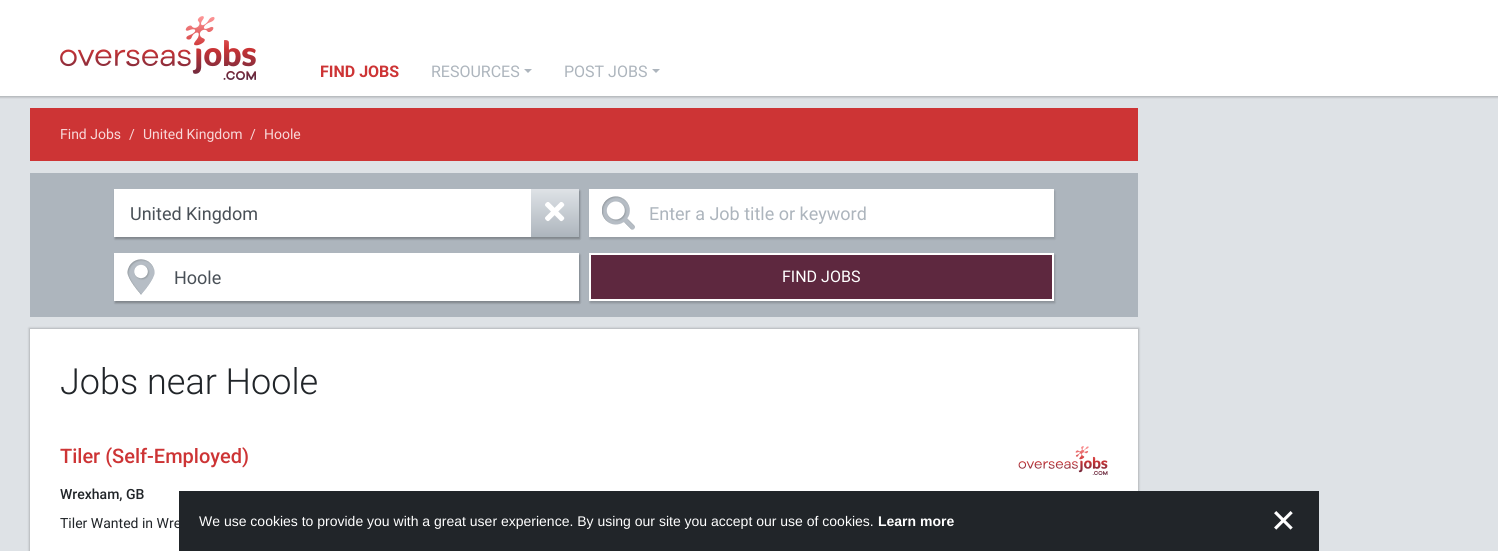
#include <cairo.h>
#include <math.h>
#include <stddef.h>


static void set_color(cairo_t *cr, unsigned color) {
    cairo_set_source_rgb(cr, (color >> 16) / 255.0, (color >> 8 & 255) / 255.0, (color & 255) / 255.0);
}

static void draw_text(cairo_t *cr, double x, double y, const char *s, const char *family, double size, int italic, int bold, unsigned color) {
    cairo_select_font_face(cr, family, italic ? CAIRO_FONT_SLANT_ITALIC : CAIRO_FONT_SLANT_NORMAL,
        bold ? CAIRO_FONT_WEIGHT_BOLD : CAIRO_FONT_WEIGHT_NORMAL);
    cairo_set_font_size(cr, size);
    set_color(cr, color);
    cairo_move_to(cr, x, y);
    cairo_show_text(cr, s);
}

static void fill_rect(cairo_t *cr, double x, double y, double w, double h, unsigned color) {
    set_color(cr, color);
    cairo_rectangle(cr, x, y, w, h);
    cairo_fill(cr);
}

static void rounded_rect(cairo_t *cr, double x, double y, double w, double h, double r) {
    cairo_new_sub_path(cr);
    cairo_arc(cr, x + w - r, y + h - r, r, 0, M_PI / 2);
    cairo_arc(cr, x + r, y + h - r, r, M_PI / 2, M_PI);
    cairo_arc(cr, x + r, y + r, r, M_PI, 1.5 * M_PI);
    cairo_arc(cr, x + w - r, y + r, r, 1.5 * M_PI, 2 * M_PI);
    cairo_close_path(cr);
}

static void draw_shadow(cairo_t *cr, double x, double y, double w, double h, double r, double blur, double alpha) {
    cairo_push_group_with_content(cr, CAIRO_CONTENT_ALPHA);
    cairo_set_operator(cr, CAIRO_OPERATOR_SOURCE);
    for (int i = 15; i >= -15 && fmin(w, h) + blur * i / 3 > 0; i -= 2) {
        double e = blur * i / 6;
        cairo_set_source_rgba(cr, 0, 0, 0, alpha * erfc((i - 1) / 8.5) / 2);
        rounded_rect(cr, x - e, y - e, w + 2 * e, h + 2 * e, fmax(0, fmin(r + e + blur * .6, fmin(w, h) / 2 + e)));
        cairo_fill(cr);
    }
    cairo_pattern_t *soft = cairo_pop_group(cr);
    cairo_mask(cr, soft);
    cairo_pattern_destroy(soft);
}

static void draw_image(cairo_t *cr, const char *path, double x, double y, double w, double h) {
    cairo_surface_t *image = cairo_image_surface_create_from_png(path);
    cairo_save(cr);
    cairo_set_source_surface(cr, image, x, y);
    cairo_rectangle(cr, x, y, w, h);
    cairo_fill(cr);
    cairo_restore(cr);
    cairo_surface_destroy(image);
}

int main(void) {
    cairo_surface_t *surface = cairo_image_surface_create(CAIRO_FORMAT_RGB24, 1498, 551);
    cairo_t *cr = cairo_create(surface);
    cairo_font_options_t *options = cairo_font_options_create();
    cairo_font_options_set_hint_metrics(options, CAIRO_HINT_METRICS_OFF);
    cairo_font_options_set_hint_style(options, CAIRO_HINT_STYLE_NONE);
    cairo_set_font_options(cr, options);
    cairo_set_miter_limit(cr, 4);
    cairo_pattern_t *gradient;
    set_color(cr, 0xFFFFFF);
    cairo_paint(cr);
    draw_image(cr, "assets/img1.png", 60, 16, 196, 64);
    draw_text(cr, 320, 77, "FIND JOBS", "Roboto", 16, 0, 1, 0xCD3435);
    draw_text(cr, 431, 77, "RESOURCES", "Roboto", 16, 0, 0, 0xADB5BD);
    cairo_new_path(cr);
    cairo_move_to(cr, 524, 69);
    cairo_line_to(cr, 532, 69);
    cairo_line_to(cr, 528, 73);
    cairo_close_path(cr);
    cairo_fill(cr);
    draw_text(cr, 564, 77, "POST JOBS", "Roboto", 16, 0, 0, 0xADB5BD);
    cairo_new_path(cr);
    cairo_move_to(cr, 652, 69);
    cairo_line_to(cr, 660, 69);
    cairo_line_to(cr, 656, 73);
    cairo_close_path(cr);
    cairo_fill(cr);
    gradient = cairo_pattern_create_linear(749, 96, 749, 99);
    cairo_pattern_add_color_stop_rgba(gradient, 0, 0.698, 0.71, 0.722, 1);
    cairo_pattern_add_color_stop_rgba(gradient, 1, 0.871, 0.886, 0.902, 1);
    cairo_set_source(cr, gradient);
    cairo_pattern_destroy(gradient);
    cairo_rectangle(cr, 0, 96, 1498, 3);
    cairo_fill(cr);
    fill_rect(cr, 0, 99, 1498, 452, 0xDEE2E6);
    fill_rect(cr, 30, 108, 1108, 53, 0xCD3435);
    draw_text(cr, 60, 139, "Find Jobs", "Roboto", 14, 0, 0, 0xF8D9DA);
    draw_text(cr, 129, 139, "/", "Roboto", 14, 0, 0, 0xF8D9DA);
    draw_text(cr, 143, 139, "United Kingdom", "Roboto", 14, 0, 0, 0xF8D9DA);
    draw_text(cr, 250, 139, "/", "Roboto", 14, 0, 0, 0xF8D9DA);
    draw_text(cr, 264, 139, "Hoole", "Roboto", 14, 0, 0, 0xF8D9DA);
    fill_rect(cr, 30, 173, 1108, 144, 0xADB5BD);
    set_color(cr, 0x000000);
    draw_shadow(cr, 115, 191, 465, 48, 0, 1, 0.15);
    fill_rect(cr, 114, 189, 417, 48, 0xFFFFFF);
    cairo_save(cr);
    cairo_set_fill_rule(cr, CAIRO_FILL_RULE_EVEN_ODD);
    cairo_new_path(cr);
    cairo_move_to(cr, 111, 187);
    cairo_line_to(cr, 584, 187);
    cairo_line_to(cr, 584, 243);
    cairo_line_to(cr, 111, 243);
    cairo_close_path(cr);
    cairo_move_to(cr, 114, 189);
    cairo_line_to(cr, 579, 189);
    cairo_line_to(cr, 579, 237);
    cairo_line_to(cr, 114, 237);
    cairo_close_path(cr);
    cairo_clip(cr);
    set_color(cr, 0x000000);
    draw_shadow(cr, 115, 191, 465, 48, 0, 1, 0.15);
    cairo_restore(cr);
    draw_text(cr, 130, 220, "United Kingdom", "Roboto", 18, 0, 0, 0x495057);
    gradient = cairo_pattern_create_linear(555, 189, 555, 237);
    cairo_pattern_add_color_stop_rgba(gradient, 0, 0.871, 0.886, 0.902, 1);
    cairo_pattern_add_color_stop_rgba(gradient, 1, 0.678, 0.71, 0.741, 1);
    cairo_set_source(cr, gradient);
    cairo_pattern_destroy(gradient);
    cairo_rectangle(cr, 531, 189, 48, 48);
    cairo_fill(cr);
    draw_image(cr, "assets/img2.png", 545, 202, 20, 20);
    set_color(cr, 0x000000);
    draw_shadow(cr, 590, 191, 465, 48, 0, 1, 0.15);
    fill_rect(cr, 589, 189, 465, 48, 0xFFFFFF);
    draw_image(cr, "assets/img3.png", 602, 196, 33, 34);
    draw_text(cr, 649, 220, "Enter a Job title or keyword", "Roboto", 18, 0, 0, 0xADB5BD);
    set_color(cr, 0x000000);
    draw_shadow(cr, 115, 255, 465, 48, 0, 1, 0.15);
    fill_rect(cr, 114, 253, 465, 48, 0xFFFFFF);
    cairo_save(cr);
    cairo_set_fill_rule(cr, CAIRO_FILL_RULE_EVEN_ODD);
    cairo_new_path(cr);
    cairo_move_to(cr, 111, 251);
    cairo_line_to(cr, 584, 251);
    cairo_line_to(cr, 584, 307);
    cairo_line_to(cr, 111, 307);
    cairo_close_path(cr);
    cairo_move_to(cr, 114, 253);
    cairo_line_to(cr, 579, 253);
    cairo_line_to(cr, 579, 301);
    cairo_line_to(cr, 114, 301);
    cairo_close_path(cr);
    cairo_clip(cr);
    set_color(cr, 0x000000);
    draw_shadow(cr, 115, 255, 465, 48, 0, 1, 0.15);
    cairo_restore(cr);
    draw_image(cr, "assets/img4.png", 127, 259, 28, 36);
    draw_text(cr, 174, 284, "Hoole", "Roboto", 18, 0, 0, 0x495057);
    set_color(cr, 0x000000);
    draw_shadow(cr, 590, 255, 465, 48, 0, 1, 0.2);
    set_color(cr, 0x5E283F);
    cairo_rectangle(cr, 590, 254, 463, 46);
    cairo_fill_preserve(cr);
    set_color(cr, 0xFFFFFF);
    cairo_stroke(cr);
    draw_text(cr, 782, 282, "FIND JOBS", "Roboto", 16, 0, 0, 0xFFFFFF);
    set_color(cr, 0x000000);
    draw_shadow(cr, 29, 328, 1110, 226, 0, 1, 0.2);
    fill_rect(cr, 30, 329, 1108, 222, 0xFFFFFF);
    draw_text(cr, 60, 394, "Jobs near Hoole", "Roboto Light", 36, 0, 0, 0x212529);
    draw_text(cr, 60, 463, "Tiler (Self-Employed)", "Roboto Medium", 20, 0, 0, 0xCD3435);
    draw_image(cr, "assets/img5.png", 1018, 446, 90, 29);
    draw_text(cr, 60, 499, "Wrexham, GB", "Roboto Medium", 14, 0, 0, 0x212529);
    draw_text(cr, 60, 528, "Tiler Wanted in Wre", "Roboto", 14, 0, 0, 0x212529);
    fill_rect(cr, 179, 491, 1140, 60, 0x212529);
    draw_text(cr, 199, 526, "We use cookies to provide you with a great user experience. By using our site you accept our use of cookies.", "Liberation Sans", 14, 0, 0, 0xFFFFFF);
    draw_text(cr, 878, 526, "Learn more", "Liberation Sans", 14, 0, 1, 0xFFFFFF);
    draw_text(cr, 1270, 532, "✕", "DejaVu Sans", 32, 0, 0, 0xFFFFFF);
    cairo_surface_write_to_png(surface, "output.png");
    cairo_font_options_destroy(options);
    cairo_destroy(cr);
    cairo_surface_destroy(surface);
    return 0;
}
